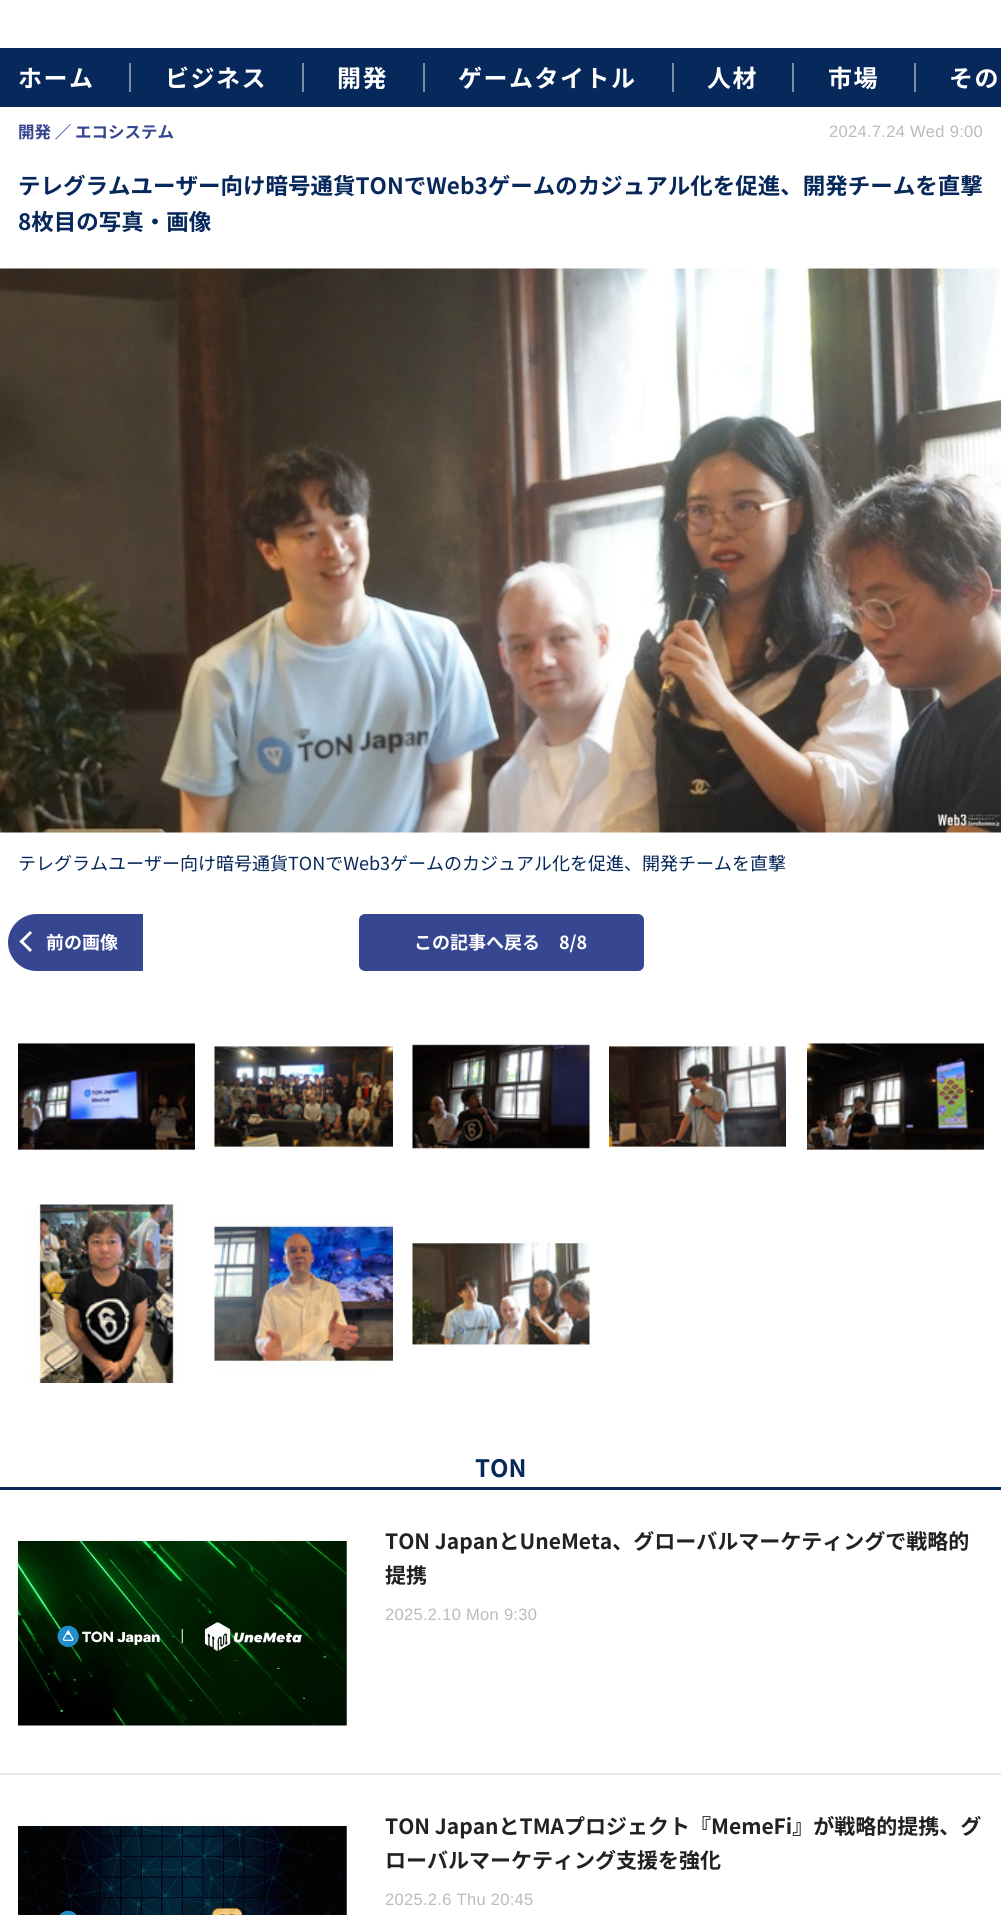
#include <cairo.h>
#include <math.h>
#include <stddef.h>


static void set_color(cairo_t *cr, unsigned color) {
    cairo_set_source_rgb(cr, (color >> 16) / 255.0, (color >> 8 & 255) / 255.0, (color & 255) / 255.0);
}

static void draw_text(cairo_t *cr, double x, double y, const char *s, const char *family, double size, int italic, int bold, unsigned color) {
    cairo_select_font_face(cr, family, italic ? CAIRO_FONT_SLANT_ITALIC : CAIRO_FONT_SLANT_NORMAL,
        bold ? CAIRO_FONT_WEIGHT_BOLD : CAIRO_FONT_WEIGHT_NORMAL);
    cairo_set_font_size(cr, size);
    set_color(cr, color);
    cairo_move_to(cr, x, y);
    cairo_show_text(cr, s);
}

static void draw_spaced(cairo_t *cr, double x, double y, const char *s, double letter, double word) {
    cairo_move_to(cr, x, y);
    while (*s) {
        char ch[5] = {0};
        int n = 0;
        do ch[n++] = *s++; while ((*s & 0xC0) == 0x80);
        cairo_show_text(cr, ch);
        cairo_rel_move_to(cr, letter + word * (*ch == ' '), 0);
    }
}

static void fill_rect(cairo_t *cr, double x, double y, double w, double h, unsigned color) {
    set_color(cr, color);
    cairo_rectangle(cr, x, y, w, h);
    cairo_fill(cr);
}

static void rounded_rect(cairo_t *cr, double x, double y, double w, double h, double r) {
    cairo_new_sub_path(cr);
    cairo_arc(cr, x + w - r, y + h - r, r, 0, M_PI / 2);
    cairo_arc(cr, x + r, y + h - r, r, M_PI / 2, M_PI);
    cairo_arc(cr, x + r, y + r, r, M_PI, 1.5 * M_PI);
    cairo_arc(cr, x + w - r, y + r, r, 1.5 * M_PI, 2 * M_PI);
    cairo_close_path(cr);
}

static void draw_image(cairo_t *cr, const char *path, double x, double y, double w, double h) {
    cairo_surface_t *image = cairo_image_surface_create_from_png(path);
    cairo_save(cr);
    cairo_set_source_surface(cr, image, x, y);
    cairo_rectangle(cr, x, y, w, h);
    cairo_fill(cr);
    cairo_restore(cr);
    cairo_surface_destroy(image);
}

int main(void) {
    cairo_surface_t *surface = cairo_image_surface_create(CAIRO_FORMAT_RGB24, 1001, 1915);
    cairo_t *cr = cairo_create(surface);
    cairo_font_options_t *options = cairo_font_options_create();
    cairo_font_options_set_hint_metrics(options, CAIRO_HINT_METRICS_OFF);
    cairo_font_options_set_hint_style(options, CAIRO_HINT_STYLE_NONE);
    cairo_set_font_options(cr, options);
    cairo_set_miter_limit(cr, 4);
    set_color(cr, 0xFFFFFF);
    cairo_paint(cr);
    fill_rect(cr, 0, 48, 1001, 59, 0x07285A);
    cairo_select_font_face(cr, "Noto Sans JP", CAIRO_FONT_SLANT_NORMAL, CAIRO_FONT_WEIGHT_BOLD);
    cairo_set_font_size(cr, 24);
    set_color(cr, 0xFFFFFF);
    draw_spaced(cr, 18, 87, "ホーム", 1.5, 0);
    fill_rect(cr, 129, 63, 2, 29, 0x7A8BA8);
    set_color(cr, 0xFFFFFF);
    draw_spaced(cr, 165, 87, "ビジネス", 1.5, 0);
    fill_rect(cr, 302, 63, 2, 29, 0x7A8BA8);
    set_color(cr, 0xFFFFFF);
    draw_spaced(cr, 337, 87, "開発", 1.5, 0);
    fill_rect(cr, 423, 63, 2, 29, 0x7A8BA8);
    set_color(cr, 0xFFFFFF);
    draw_spaced(cr, 458, 87, "ゲームタイトル", 1.5, 0);
    fill_rect(cr, 672, 63, 2, 29, 0x7A8BA8);
    set_color(cr, 0xFFFFFF);
    draw_spaced(cr, 707, 87, "人材", 1.5, 0);
    fill_rect(cr, 792, 63, 2, 29, 0x7A8BA8);
    set_color(cr, 0xFFFFFF);
    draw_spaced(cr, 828, 87, "市場", 1.5, 0);
    fill_rect(cr, 914, 63, 2, 29, 0x7A8BA8);
    set_color(cr, 0xFFFFFF);
    draw_spaced(cr, 949, 87, "その", 1.5, 0);
    draw_text(cr, 18, 138, "開発 ／ エコシステム", "Noto Sans JP", 16.5, 0, 1, 0x364691);
    cairo_select_font_face(cr, "Liberation Sans", CAIRO_FONT_SLANT_NORMAL, CAIRO_FONT_WEIGHT_NORMAL);
    set_color(cr, 0xBBBBBB);
    draw_spaced(cr, 829, 137, "2024.7.24 Wed 9:00", 0.3, 0);
    draw_text(cr, 18, 194, "テレグラムユーザー向け暗号通貨TONでWeb3ゲームのカジュアル化を促進、開発チームを直撃", "Noto Sans JP", 22.5, 0, 1, 0x07285A);
    draw_text(cr, 18, 230, "8枚目の写真・画像", "Noto Sans JP", 22.5, 0, 1, 0x07285A);
    draw_image(cr, "assets/img1.png", 0, 268, 1001, 565);
    draw_text(cr, 18, 870, "テレグラムユーザー向け暗号通貨TONでWeb3ゲームのカジュアル化を促進、開発チームを直撃", "Noto Sans JP", 18, 0, 0, 0x07285A);
    set_color(cr, 0x364691);
    cairo_new_path(cr);
    cairo_move_to(cr, 36.5, 914);
    cairo_line_to(cr, 143, 914);
    cairo_line_to(cr, 143, 971);
    cairo_line_to(cr, 36.5, 971);
    cairo_curve_to(cr, 21, 971, 8, 958, 8, 942.5);
    cairo_curve_to(cr, 8, 927, 21, 914, 36.5, 914);
    cairo_close_path(cr);
    cairo_fill(cr);
    set_color(cr, 0xFFFFFF);
    cairo_new_path(cr);
    cairo_move_to(cr, 30, 952);
    cairo_line_to(cr, 19.5, 941.5);
    cairo_line_to(cr, 21.5, 939.5);
    cairo_line_to(cr, 32, 950);
    cairo_close_path(cr);
    cairo_fill(cr);
    cairo_new_path(cr);
    cairo_move_to(cr, 21.5, 943.5);
    cairo_line_to(cr, 19.5, 941.5);
    cairo_line_to(cr, 30, 931);
    cairo_line_to(cr, 32, 933);
    cairo_close_path(cr);
    cairo_fill(cr);
    draw_text(cr, 46, 949, "前の画像", "Noto Sans JP", 18, 0, 1, 0xFFFFFF);
    set_color(cr, 0x364691);
    rounded_rect(cr, 359, 914, 285, 57, 6);
    cairo_fill(cr);
    draw_text(cr, 414, 949, "この記事へ戻る", "Noto Sans JP", 18, 0, 1, 0xFFFFFF);
    draw_text(cr, 559, 949, "8/8", "Noto Sans JP", 18, 0, 1, 0xFFFFFF);
    draw_image(cr, "assets/img2.png", 18, 1043, 177, 107);
    draw_image(cr, "assets/img3.png", 214, 1043, 179, 107);
    draw_image(cr, "assets/img4.png", 412, 1044, 178, 106);
    draw_image(cr, "assets/img5.png", 609, 1043, 177, 107);
    draw_image(cr, "assets/img6.png", 807, 1043, 177, 107);
    draw_image(cr, "assets/img7.png", 30, 1204, 153, 179);
    draw_image(cr, "assets/img8.png", 214, 1218, 179, 153);
    draw_image(cr, "assets/img9.png", 412, 1240, 178, 107);
    fill_rect(cr, 0, 1487, 1001, 3, 0x07285A);
    draw_text(cr, 475, 1477, "TON", "Noto Sans JP", 24, 0, 1, 0x07285A);
    fill_rect(cr, 0, 1773, 1001, 2, 0xE3E7ED);
    draw_image(cr, "assets/img10.png", 18, 1524, 329, 219);
    draw_image(cr, "assets/img11.png", 346, 1524, 1, 219);
    draw_text(cr, 385, 1549, "TON JapanとUneMeta、グローバルマーケティングで戦略的", "Noto Sans JP", 21, 0, 1, 0x222222);
    draw_text(cr, 385, 1583, "提携", "Noto Sans JP", 21, 0, 1, 0x222222);
    cairo_select_font_face(cr, "Liberation Sans", CAIRO_FONT_SLANT_NORMAL, CAIRO_FONT_WEIGHT_NORMAL);
    cairo_set_font_size(cr, 16.5);
    set_color(cr, 0xBBBBBB);
    draw_spaced(cr, 385, 1620, "2025.2.10 Mon 9:30", 0.3, 0);
    draw_image(cr, "assets/img12.png", 18, 1809, 329, 106);
    draw_image(cr, "assets/img13.png", 346, 1809, 1, 106);
    draw_text(cr, 385, 1834, "TON JapanとTMAプロジェクト『MemeFi』が戦略的提携、グ", "Noto Sans JP", 21, 0, 1, 0x222222);
    draw_text(cr, 385, 1868, "ローバルマーケティング支援を強化", "Noto Sans JP", 21, 0, 1, 0x222222);
    cairo_select_font_face(cr, "Liberation Sans", CAIRO_FONT_SLANT_NORMAL, CAIRO_FONT_WEIGHT_NORMAL);
    cairo_set_font_size(cr, 16.5);
    set_color(cr, 0xBBBBBB);
    draw_spaced(cr, 385, 1905, "2025.2.6 Thu 20:45", 0.3, 0);
    cairo_surface_write_to_png(surface, "output.png");
    cairo_font_options_destroy(options);
    cairo_destroy(cr);
    cairo_surface_destroy(surface);
    return 0;
}
